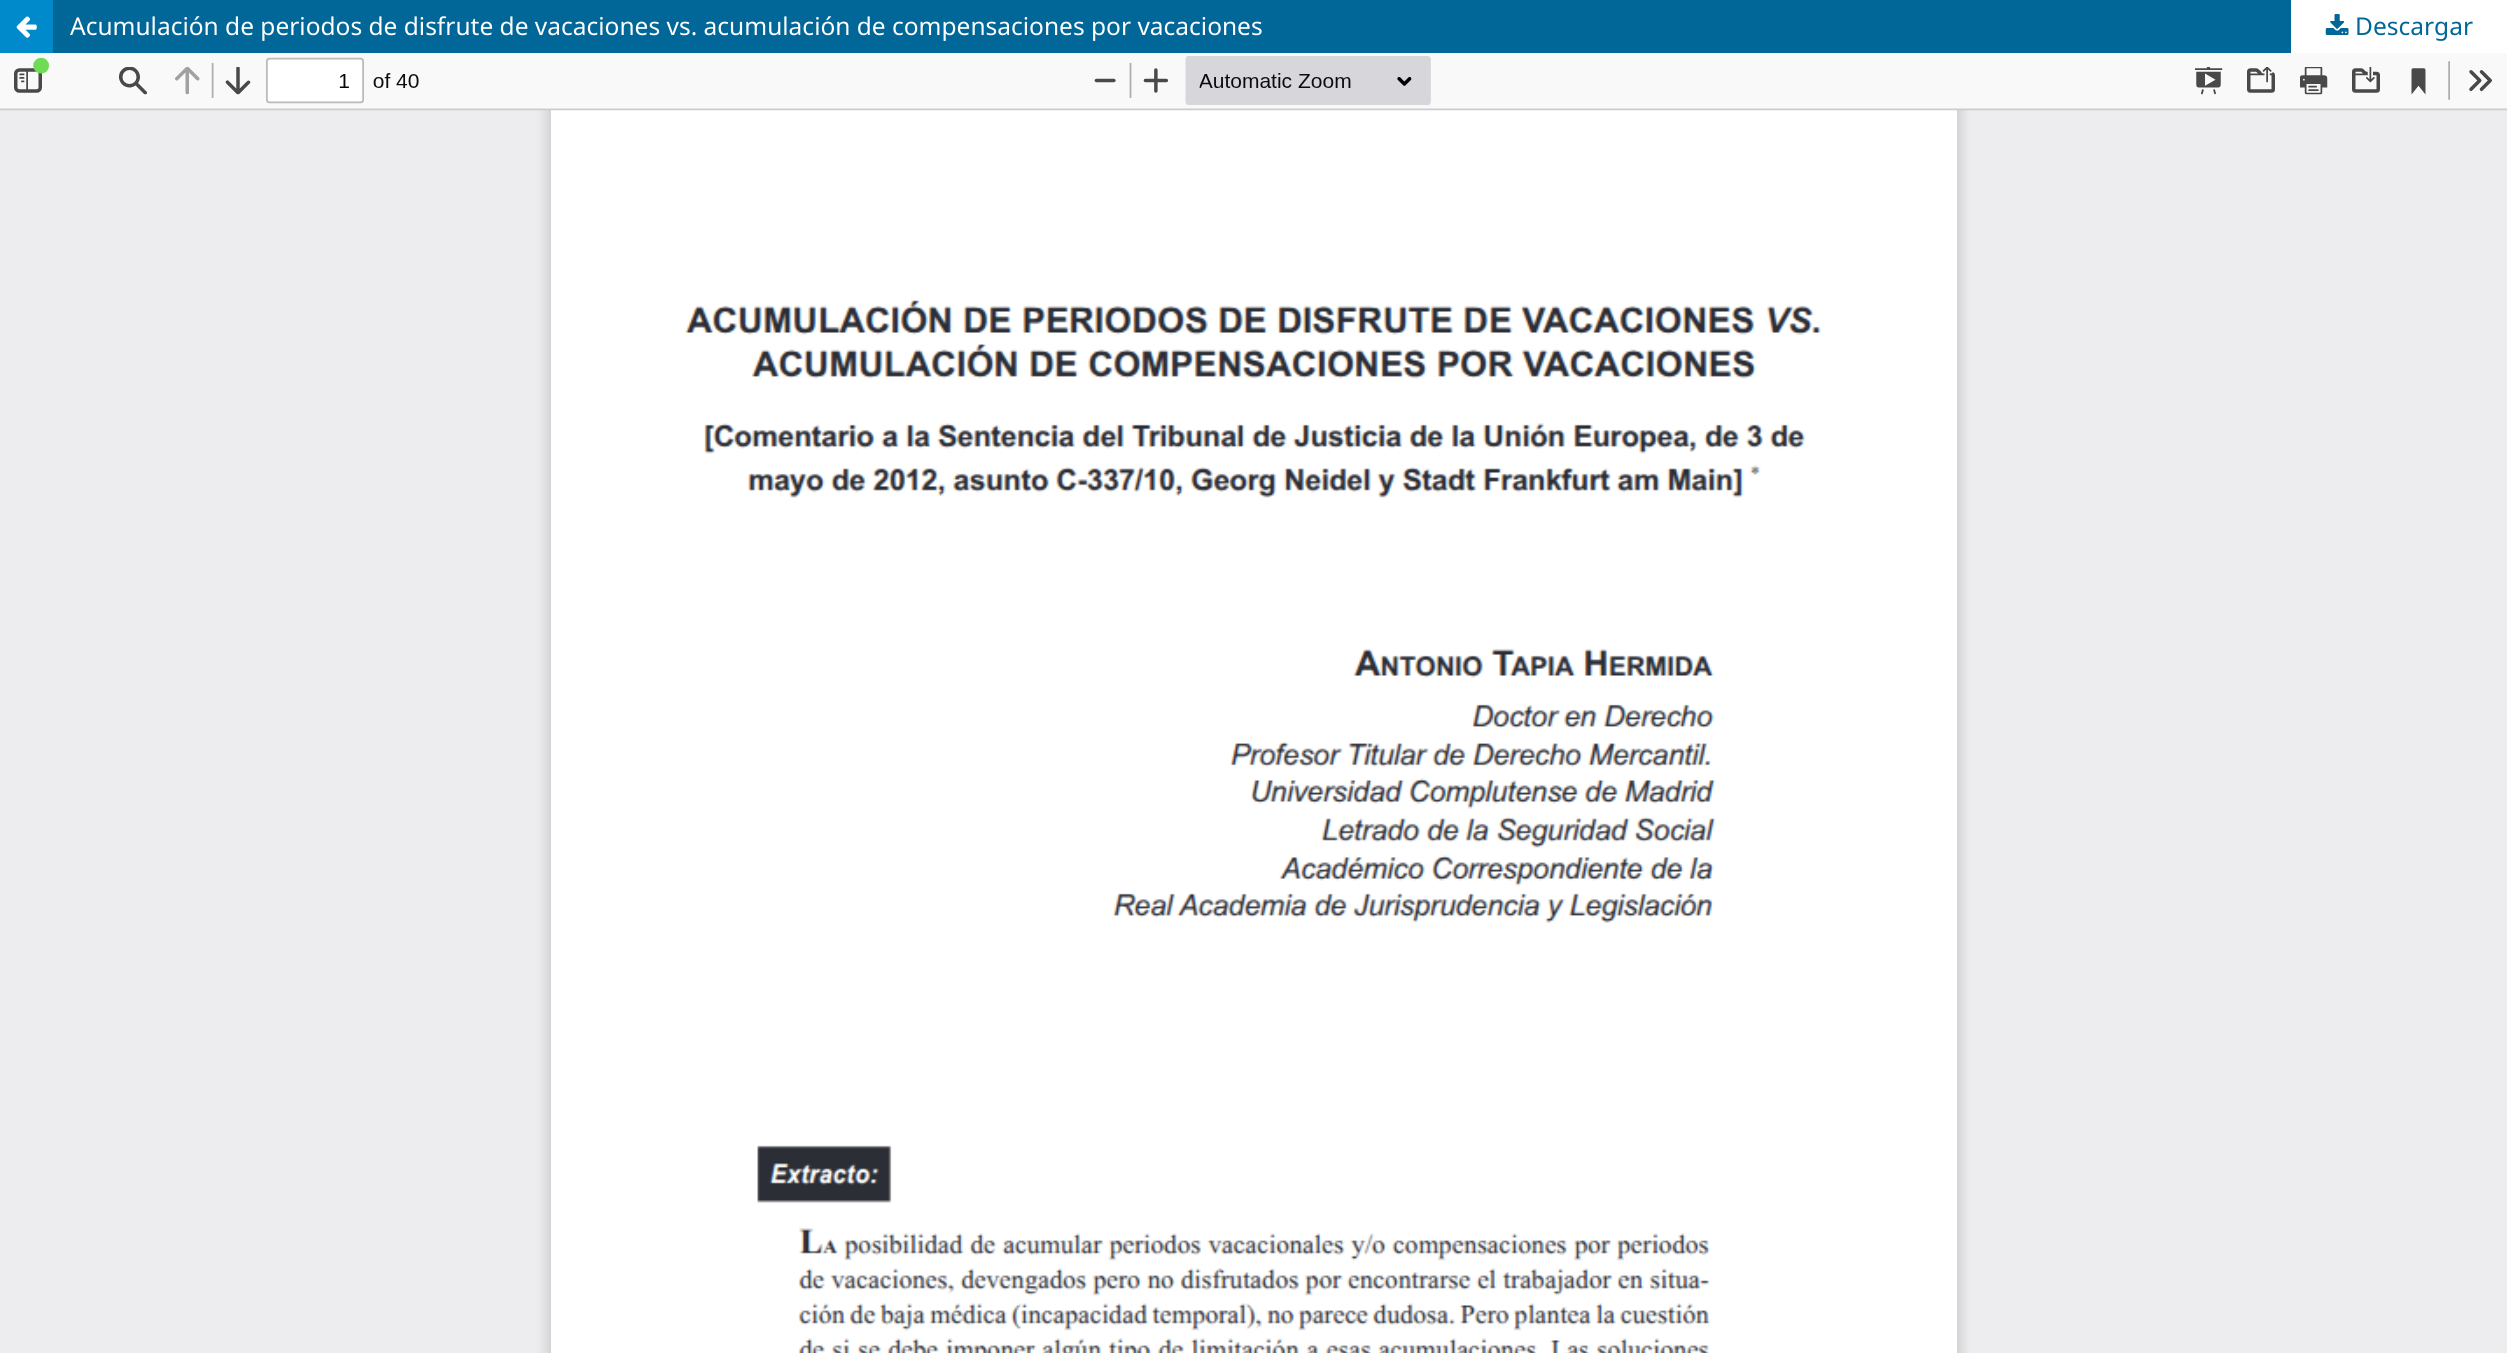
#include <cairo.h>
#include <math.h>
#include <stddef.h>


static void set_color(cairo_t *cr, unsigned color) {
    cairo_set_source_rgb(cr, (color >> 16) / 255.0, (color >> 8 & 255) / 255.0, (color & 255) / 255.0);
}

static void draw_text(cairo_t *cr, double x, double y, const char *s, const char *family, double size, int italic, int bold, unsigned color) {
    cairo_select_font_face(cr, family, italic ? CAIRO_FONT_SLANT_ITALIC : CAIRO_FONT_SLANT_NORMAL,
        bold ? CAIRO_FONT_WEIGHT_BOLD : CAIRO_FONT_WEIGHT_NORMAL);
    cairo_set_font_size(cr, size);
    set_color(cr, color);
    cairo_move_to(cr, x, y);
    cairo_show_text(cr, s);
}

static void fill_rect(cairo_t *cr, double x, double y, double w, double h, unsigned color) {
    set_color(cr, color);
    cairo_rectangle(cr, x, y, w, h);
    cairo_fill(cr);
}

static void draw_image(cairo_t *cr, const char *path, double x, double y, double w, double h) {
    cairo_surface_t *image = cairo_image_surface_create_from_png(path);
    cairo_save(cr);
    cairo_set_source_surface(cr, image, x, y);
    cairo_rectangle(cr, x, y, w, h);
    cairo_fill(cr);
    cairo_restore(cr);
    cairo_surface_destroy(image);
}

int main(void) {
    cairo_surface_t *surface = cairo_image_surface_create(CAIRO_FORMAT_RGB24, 2507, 1353);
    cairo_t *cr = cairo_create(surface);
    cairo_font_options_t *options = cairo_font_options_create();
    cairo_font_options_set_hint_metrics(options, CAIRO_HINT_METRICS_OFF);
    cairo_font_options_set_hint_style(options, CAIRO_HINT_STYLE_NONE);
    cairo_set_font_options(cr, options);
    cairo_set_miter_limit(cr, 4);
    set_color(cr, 0xFFFFFF);
    cairo_paint(cr);
    fill_rect(cr, 53, 0, 2238, 53, 0x006798);
    fill_rect(cr, 0, 0, 53, 53, 0x008ACB);
    draw_image(cr, "assets/img1.png", 16, 16, 21, 22);
    draw_text(cr, 70, 35, "Acumulación de periodos de disfrute de vacaciones vs. acumulación de compensaciones por vacaciones", "Noto Sans", 24.5, 0, 0, 0xFFFFFF);
    draw_image(cr, "assets/img2.png", 2325, 14, 24, 21);
    draw_text(cr, 2355, 35, "Descargar", "Noto Sans", 24.5, 0, 0, 0x006798);
    draw_image(cr, "assets/img3.png", 0, 53, 2507, 1300);
    cairo_surface_write_to_png(surface, "output.png");
    cairo_font_options_destroy(options);
    cairo_destroy(cr);
    cairo_surface_destroy(surface);
    return 0;
}
